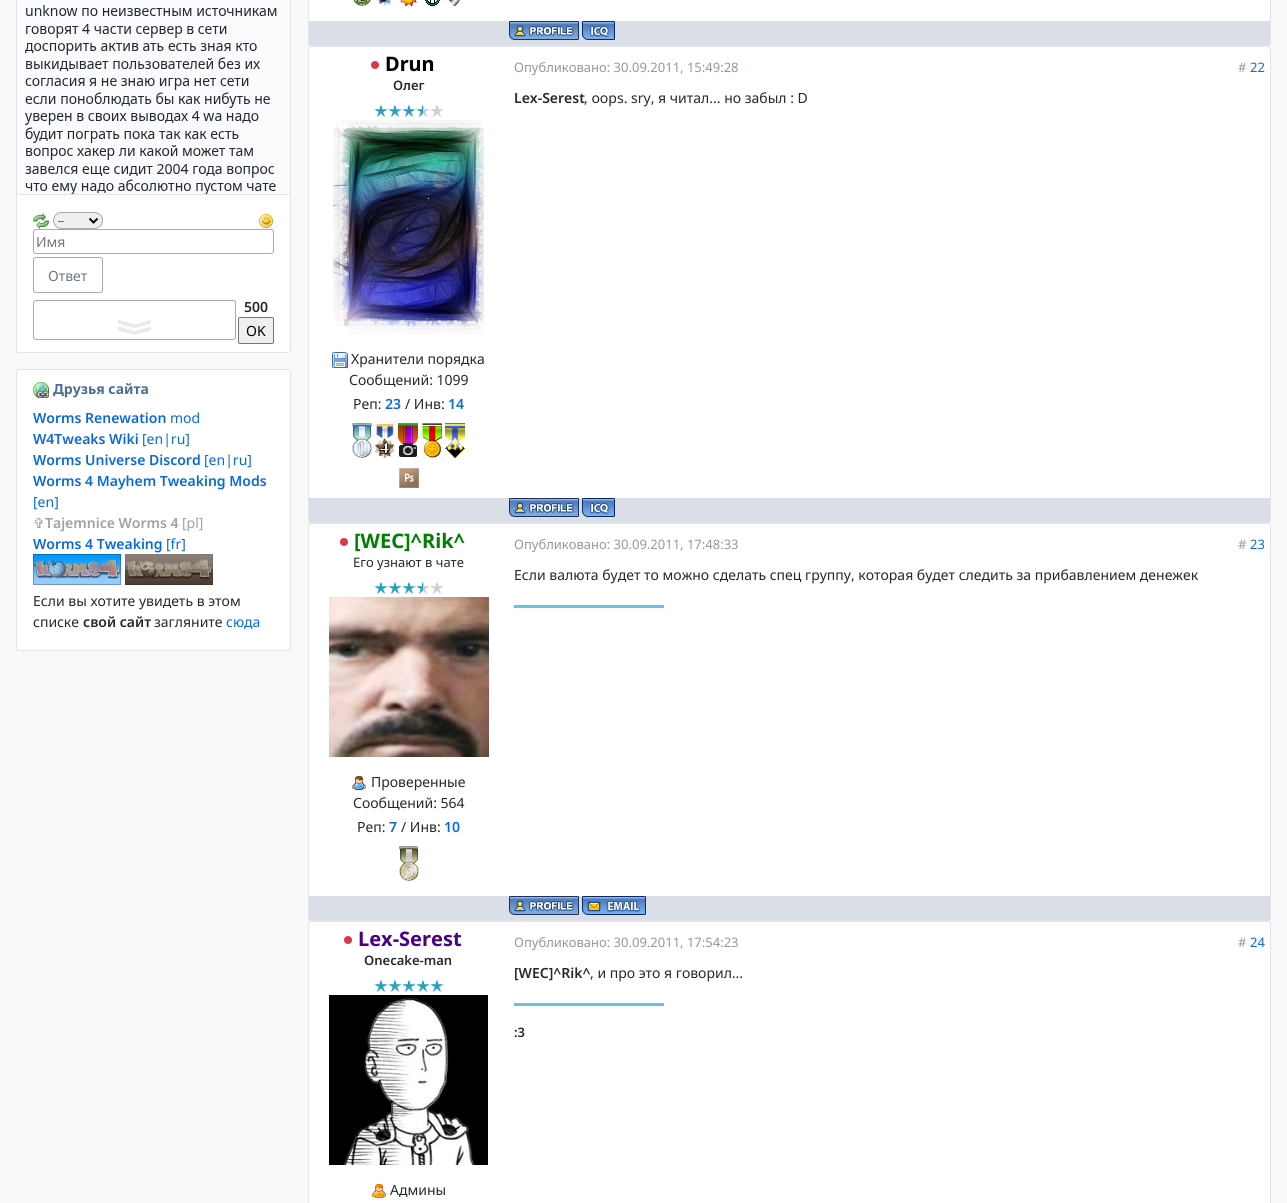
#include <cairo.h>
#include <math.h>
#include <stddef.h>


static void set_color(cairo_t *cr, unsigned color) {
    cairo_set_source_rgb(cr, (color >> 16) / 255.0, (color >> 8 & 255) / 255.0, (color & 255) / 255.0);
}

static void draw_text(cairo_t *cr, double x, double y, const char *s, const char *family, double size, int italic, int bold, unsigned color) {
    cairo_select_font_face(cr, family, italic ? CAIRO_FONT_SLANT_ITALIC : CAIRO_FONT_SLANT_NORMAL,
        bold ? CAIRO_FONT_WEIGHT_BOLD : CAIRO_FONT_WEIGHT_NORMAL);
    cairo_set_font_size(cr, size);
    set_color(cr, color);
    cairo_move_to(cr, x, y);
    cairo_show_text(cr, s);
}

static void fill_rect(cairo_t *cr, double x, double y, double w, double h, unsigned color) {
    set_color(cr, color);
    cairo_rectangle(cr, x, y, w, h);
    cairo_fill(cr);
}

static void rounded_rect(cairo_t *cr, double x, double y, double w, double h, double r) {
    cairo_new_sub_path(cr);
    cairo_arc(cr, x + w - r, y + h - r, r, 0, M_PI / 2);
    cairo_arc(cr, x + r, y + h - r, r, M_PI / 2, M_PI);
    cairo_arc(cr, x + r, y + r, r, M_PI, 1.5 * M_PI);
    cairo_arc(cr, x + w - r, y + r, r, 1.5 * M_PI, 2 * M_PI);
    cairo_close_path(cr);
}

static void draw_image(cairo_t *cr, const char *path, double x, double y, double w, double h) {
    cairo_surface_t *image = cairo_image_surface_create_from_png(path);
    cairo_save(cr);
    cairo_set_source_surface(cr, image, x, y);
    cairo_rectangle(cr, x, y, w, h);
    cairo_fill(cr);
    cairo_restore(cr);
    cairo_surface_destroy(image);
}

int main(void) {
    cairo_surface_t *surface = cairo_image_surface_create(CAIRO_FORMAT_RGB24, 1287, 1203);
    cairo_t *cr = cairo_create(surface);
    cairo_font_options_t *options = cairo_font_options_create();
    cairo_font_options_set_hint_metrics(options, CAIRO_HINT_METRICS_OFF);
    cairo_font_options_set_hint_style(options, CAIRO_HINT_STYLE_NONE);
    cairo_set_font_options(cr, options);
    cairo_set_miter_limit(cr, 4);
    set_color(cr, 0xF9F9F9);
    cairo_paint(cr);
    set_color(cr, 0xFFFFFF);
    rounded_rect(cr, 16.5, -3.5, 274, 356, 2.5);
    cairo_fill_preserve(cr);
    set_color(cr, 0xE1E4E8);
    cairo_set_line_width(cr, 1);
    cairo_stroke(cr);
    draw_image(cr, "assets/img1.png", 17, 0, 273, 194);
    fill_rect(cr, 17, 194, 273, 1, 0xE1E4E8);
    draw_image(cr, "assets/img2.png", 33, 213, 16, 16);
    set_color(cr, 0xEFEFEF);
    rounded_rect(cr, 53.5, 212.5, 49, 16, 8);
    cairo_fill_preserve(cr);
    set_color(cr, 0xA9A9A9);
    cairo_stroke(cr);
    cairo_new_path(cr);
    cairo_move_to(cr, 89.5, 218.5);
    cairo_line_to(cr, 93.5, 222.5);
    cairo_line_to(cr, 97.5, 218.5);
    set_color(cr, 0x000000);
    cairo_set_line_width(cr, 2);
    cairo_stroke(cr);
    draw_text(cr, 58, 224, "--", "Noto Sans", 9, 0, 0, 0x000000);
    draw_image(cr, "assets/img3.png", 259, 214, 14, 14);
    rounded_rect(cr, 33.5, 229.5, 240, 24, 2.5);
    set_color(cr, 0xA9A9A9);
    cairo_set_line_width(cr, 1);
    cairo_stroke(cr);
    draw_text(cr, 36, 247, "Имя", "Noto Sans", 14, 0, 0, 0x6E7781);
    rounded_rect(cr, 33.5, 257.5, 69, 35, 2.5);
    set_color(cr, 0xA9A9A9);
    cairo_stroke(cr);
    draw_text(cr, 48, 281, "Ответ", "Noto Sans", 14, 0, 0, 0x6E7781);
    draw_image(cr, "assets/img4.png", 118, 320, 33, 15);
    rounded_rect(cr, 33.5, 300.5, 202, 39, 2.5);
    set_color(cr, 0xA9A9A9);
    cairo_stroke(cr);
    draw_text(cr, 244, 312, "500", "Noto Sans SemiBold", 14, 0, 0, 0x24292E);
    set_color(cr, 0xEFEFEF);
    rounded_rect(cr, 238.5, 317.5, 35, 26, 1.5);
    cairo_fill_preserve(cr);
    set_color(cr, 0x767676);
    cairo_stroke(cr);
    draw_text(cr, 246, 336, "OK", "Noto Sans", 14, 0, 0, 0x000000);
    set_color(cr, 0xFFFFFF);
    rounded_rect(cr, 16.5, 369.5, 274, 281, 2.5);
    cairo_fill_preserve(cr);
    set_color(cr, 0xE1E4E8);
    cairo_stroke(cr);
    draw_image(cr, "assets/img5.png", 33, 382, 16, 16);
    draw_text(cr, 53, 394, "Друзья сайта", "Noto Sans", 14, 0, 1, 0x4D6D91);
    draw_text(cr, 33, 423, "Worms Renewation", "Noto Sans SemiBold", 14, 0, 0, 0x0969DA);
    draw_text(cr, 170, 423, "mod", "Noto Sans", 14, 0, 0, 0x0969DA);
    draw_text(cr, 33, 444, "W4Tweaks Wiki", "Noto Sans SemiBold", 14, 0, 0, 0x0969DA);
    draw_text(cr, 142, 444, "[en|ru]", "Noto Sans", 14, 0, 0, 0x0969DA);
    draw_text(cr, 33, 465, "Worms Universe Discord", "Noto Sans SemiBold", 14, 0, 0, 0x0969DA);
    draw_text(cr, 204, 465, "[en|ru]", "Noto Sans", 14, 0, 0, 0x0969DA);
    draw_text(cr, 33, 486, "Worms 4 Mayhem Tweaking Mods", "Noto Sans SemiBold", 14, 0, 0, 0x0969DA);
    draw_text(cr, 33, 507, "[en]", "Noto Sans", 14, 0, 0, 0x0969DA);
    draw_text(cr, 33, 528, "✞", "DejaVu Sans", 14, 0, 0, 0xA0A0A0);
    draw_text(cr, 45, 528, "Tajemnice Worms 4", "Noto Sans SemiBold", 14, 0, 0, 0xA0A0A0);
    draw_text(cr, 182, 528, "[pl]", "Noto Sans", 14, 0, 0, 0xA0A0A0);
    draw_text(cr, 33, 549, "Worms 4 Tweaking", "Noto Sans SemiBold", 14, 0, 0, 0x0969DA);
    draw_text(cr, 166, 549, "[fr]", "Noto Sans", 14, 0, 0, 0x0969DA);
    draw_image(cr, "assets/img6.png", 33, 554, 88, 31);
    draw_image(cr, "assets/img7.png", 125, 554, 88, 31);
    draw_text(cr, 33, 606, "Если вы хотите увидеть в этом", "Noto Sans", 14, 0, 0, 0x24292E);
    draw_text(cr, 33, 627, "спиcке", "Noto Sans", 14, 0, 0, 0x24292E);
    draw_text(cr, 83, 627, "свой сайт", "Noto Sans SemiBold", 14, 0, 0, 0x24292E);
    draw_text(cr, 154, 627, "загляните", "Noto Sans", 14, 0, 0, 0x24292E);
    draw_text(cr, 226, 627, "сюда", "Noto Sans", 14, 0, 0, 0x0969DA);
    set_color(cr, 0xFFFFFF);
    rounded_rect(cr, 308.5, -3.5, 962, 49, 2.5);
    cairo_fill_preserve(cr);
    set_color(cr, 0xE1E4E8);
    cairo_stroke(cr);
    draw_image(cr, "assets/img8.png", 353, 0, 18, 6);
    draw_image(cr, "assets/img9.png", 376, 0, 17, 6);
    draw_image(cr, "assets/img10.png", 400, 0, 17, 6);
    draw_image(cr, "assets/img11.png", 425, 0, 15, 6);
    draw_image(cr, "assets/img12.png", 449, 0, 11, 6);
    fill_rect(cr, 309, 21, 961, 24, 0xDADFE7);
    draw_image(cr, "assets/img13.png", 509, 21, 70, 19);
    draw_image(cr, "assets/img14.png", 582, 21, 33, 19);
    set_color(cr, 0xFFFFFF);
    rounded_rect(cr, 308.5, 46.5, 962, 476, 2.5);
    cairo_fill_preserve(cr);
    set_color(cr, 0xE1E4E8);
    cairo_stroke(cr);
    set_color(cr, 0xD73A49);
    cairo_arc(cr, 375, 65, 4, 0, 2 * M_PI);
    cairo_fill(cr);
    draw_text(cr, 385, 71, "Drun", "Noto Sans", 20, 0, 1, 0x000000);
    draw_text(cr, 393, 90, "Олег", "Noto Sans SemiBold", 13, 0, 0, 0x24292E);
    draw_image(cr, "assets/img15.png", 374, 104, 69, 13);
    draw_image(cr, "assets/img16.png", 333, 120, 151, 214);
    draw_image(cr, "assets/img17.png", 332, 352, 16, 16);
    draw_text(cr, 351, 364, "Хранители порядка", "Noto Sans", 14, 0, 0, 0x24292E);
    draw_text(cr, 349, 385, "Сообщений: 1099", "Noto Sans", 14, 0, 0, 0x24292E);
    draw_text(cr, 353, 409, "Реп:", "Noto Sans", 14, 0, 0, 0x24292E);
    draw_text(cr, 385, 409, "23", "Noto Sans SemiBold", 14, 0, 0, 0x0969DA);
    draw_text(cr, 405, 409, "/ Инв:", "Noto Sans", 14, 0, 0, 0x24292E);
    draw_text(cr, 448, 409, "14", "Noto Sans SemiBold", 14, 0, 0, 0x0969DA);
    draw_image(cr, "assets/img18.png", 352, 423, 20, 35);
    draw_image(cr, "assets/img19.png", 375, 424, 19, 34);
    draw_image(cr, "assets/img20.png", 398, 423, 20, 34);
    draw_image(cr, "assets/img21.png", 422, 423, 20, 35);
    draw_image(cr, "assets/img22.png", 445, 423, 20, 35);
    draw_image(cr, "assets/img23.png", 399, 468, 20, 20);
    draw_text(cr, 514, 72, "Опубликовано: 30.09.2011, 15:49:28", "Noto Sans", 13, 0, 0, 0x8D9AA6);
    draw_text(cr, 1238, 72, "#", "Noto Sans", 13, 0, 0, 0x8D9AA6);
    draw_text(cr, 1250, 72, "22", "Noto Sans", 13, 0, 0, 0x0969DA);
    draw_text(cr, 514, 103, "Lex-Serest", "Noto Sans SemiBold", 14, 0, 0, 0x24292E);
    draw_text(cr, 584, 103, ", oops. sry, я читал... но забыл : D", "Noto Sans", 14, 0, 0, 0x24292E);
    fill_rect(cr, 309, 498, 961, 24, 0xDADFE7);
    draw_image(cr, "assets/img13.png", 509, 498, 70, 19);
    draw_image(cr, "assets/img14.png", 582, 498, 33, 19);
    set_color(cr, 0xFFFFFF);
    rounded_rect(cr, 308.5, 523.5, 962, 397, 2.5);
    cairo_fill_preserve(cr);
    set_color(cr, 0xE1E4E8);
    cairo_stroke(cr);
    set_color(cr, 0xD73A49);
    cairo_arc(cr, 344, 542, 4, 0, 2 * M_PI);
    cairo_fill(cr);
    draw_text(cr, 354, 548, "[WEC]^Rik^", "Noto Sans", 20, 0, 1, 0x008000);
    draw_text(cr, 353, 567, "Его узнают в чате", "Noto Sans", 13, 0, 0, 0x24292E);
    draw_image(cr, "assets/img15.png", 374, 581, 69, 13);
    draw_image(cr, "assets/img24.png", 329, 597, 160, 160);
    draw_image(cr, "assets/img25.png", 352, 776, 14, 14);
    draw_text(cr, 371, 787, "Проверенные", "Noto Sans", 14, 0, 0, 0x24292E);
    draw_text(cr, 353, 808, "Сообщений: 564", "Noto Sans", 14, 0, 0, 0x24292E);
    draw_text(cr, 357, 832, "Реп:", "Noto Sans", 14, 0, 0, 0x24292E);
    draw_text(cr, 389, 832, "7", "Noto Sans SemiBold", 14, 0, 0, 0x0969DA);
    draw_text(cr, 401, 832, "/ Инв:", "Noto Sans", 14, 0, 0, 0x24292E);
    draw_text(cr, 444, 832, "10", "Noto Sans SemiBold", 14, 0, 0, 0x0969DA);
    draw_image(cr, "assets/img26.png", 399, 846, 20, 35);
    draw_text(cr, 514, 549, "Опубликовано: 30.09.2011, 17:48:33", "Noto Sans", 13, 0, 0, 0x8D9AA6);
    draw_text(cr, 1238, 549, "#", "Noto Sans", 13, 0, 0, 0x8D9AA6);
    draw_text(cr, 1250, 549, "23", "Noto Sans", 13, 0, 0, 0x0969DA);
    draw_text(cr, 514, 580, "Если валюта будет то можно сделать спец группу, которая будет следить за прибавлением денежек", "Noto Sans", 14, 0, 0, 0x24292E);
    fill_rect(cr, 514, 605, 150, 3, 0x64C3DE);
    fill_rect(cr, 309, 896, 961, 24, 0xDADFE7);
    draw_image(cr, "assets/img13.png", 509, 896, 70, 19);
    draw_image(cr, "assets/img27.png", 582, 896, 64, 19);
    set_color(cr, 0xFFFFFF);
    rounded_rect(cr, 308.5, 921.5, 962, 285, 2.5);
    cairo_fill_preserve(cr);
    set_color(cr, 0xE1E4E8);
    cairo_stroke(cr);
    set_color(cr, 0xD73A49);
    cairo_arc(cr, 348, 940, 4, 0, 2 * M_PI);
    cairo_fill(cr);
    draw_text(cr, 358, 946, "Lex-Serest", "Noto Sans", 20, 0, 1, 0x4B0082);
    draw_text(cr, 364, 965, "Onecake-man", "Noto Sans SemiBold", 13, 0, 0, 0x24292E);
    draw_image(cr, "assets/img28.png", 374, 979, 69, 13);
    draw_image(cr, "assets/img29.png", 329, 995, 159, 170);
    draw_image(cr, "assets/img30.png", 372, 1184, 14, 14);
    draw_text(cr, 390, 1195, "Админы", "Noto Sans", 14, 0, 0, 0x24292E);
    draw_text(cr, 514, 947, "Опубликовано: 30.09.2011, 17:54:23", "Noto Sans", 13, 0, 0, 0x8D9AA6);
    draw_text(cr, 1238, 947, "#", "Noto Sans", 13, 0, 0, 0x8D9AA6);
    draw_text(cr, 1250, 947, "24", "Noto Sans", 13, 0, 0, 0x0969DA);
    draw_text(cr, 514, 978, "[WEC]^Rik^", "Noto Sans SemiBold", 14, 0, 0, 0x24292E);
    draw_text(cr, 590, 978, ", и про это я говорил...", "Noto Sans", 14, 0, 0, 0x24292E);
    fill_rect(cr, 514, 1003, 150, 3, 0x64C3DE);
    draw_text(cr, 514, 1037, ":3", "Noto Sans SemiBold", 13, 0, 0, 0x24292E);
    cairo_surface_write_to_png(surface, "output.png");
    cairo_font_options_destroy(options);
    cairo_destroy(cr);
    cairo_surface_destroy(surface);
    return 0;
}
